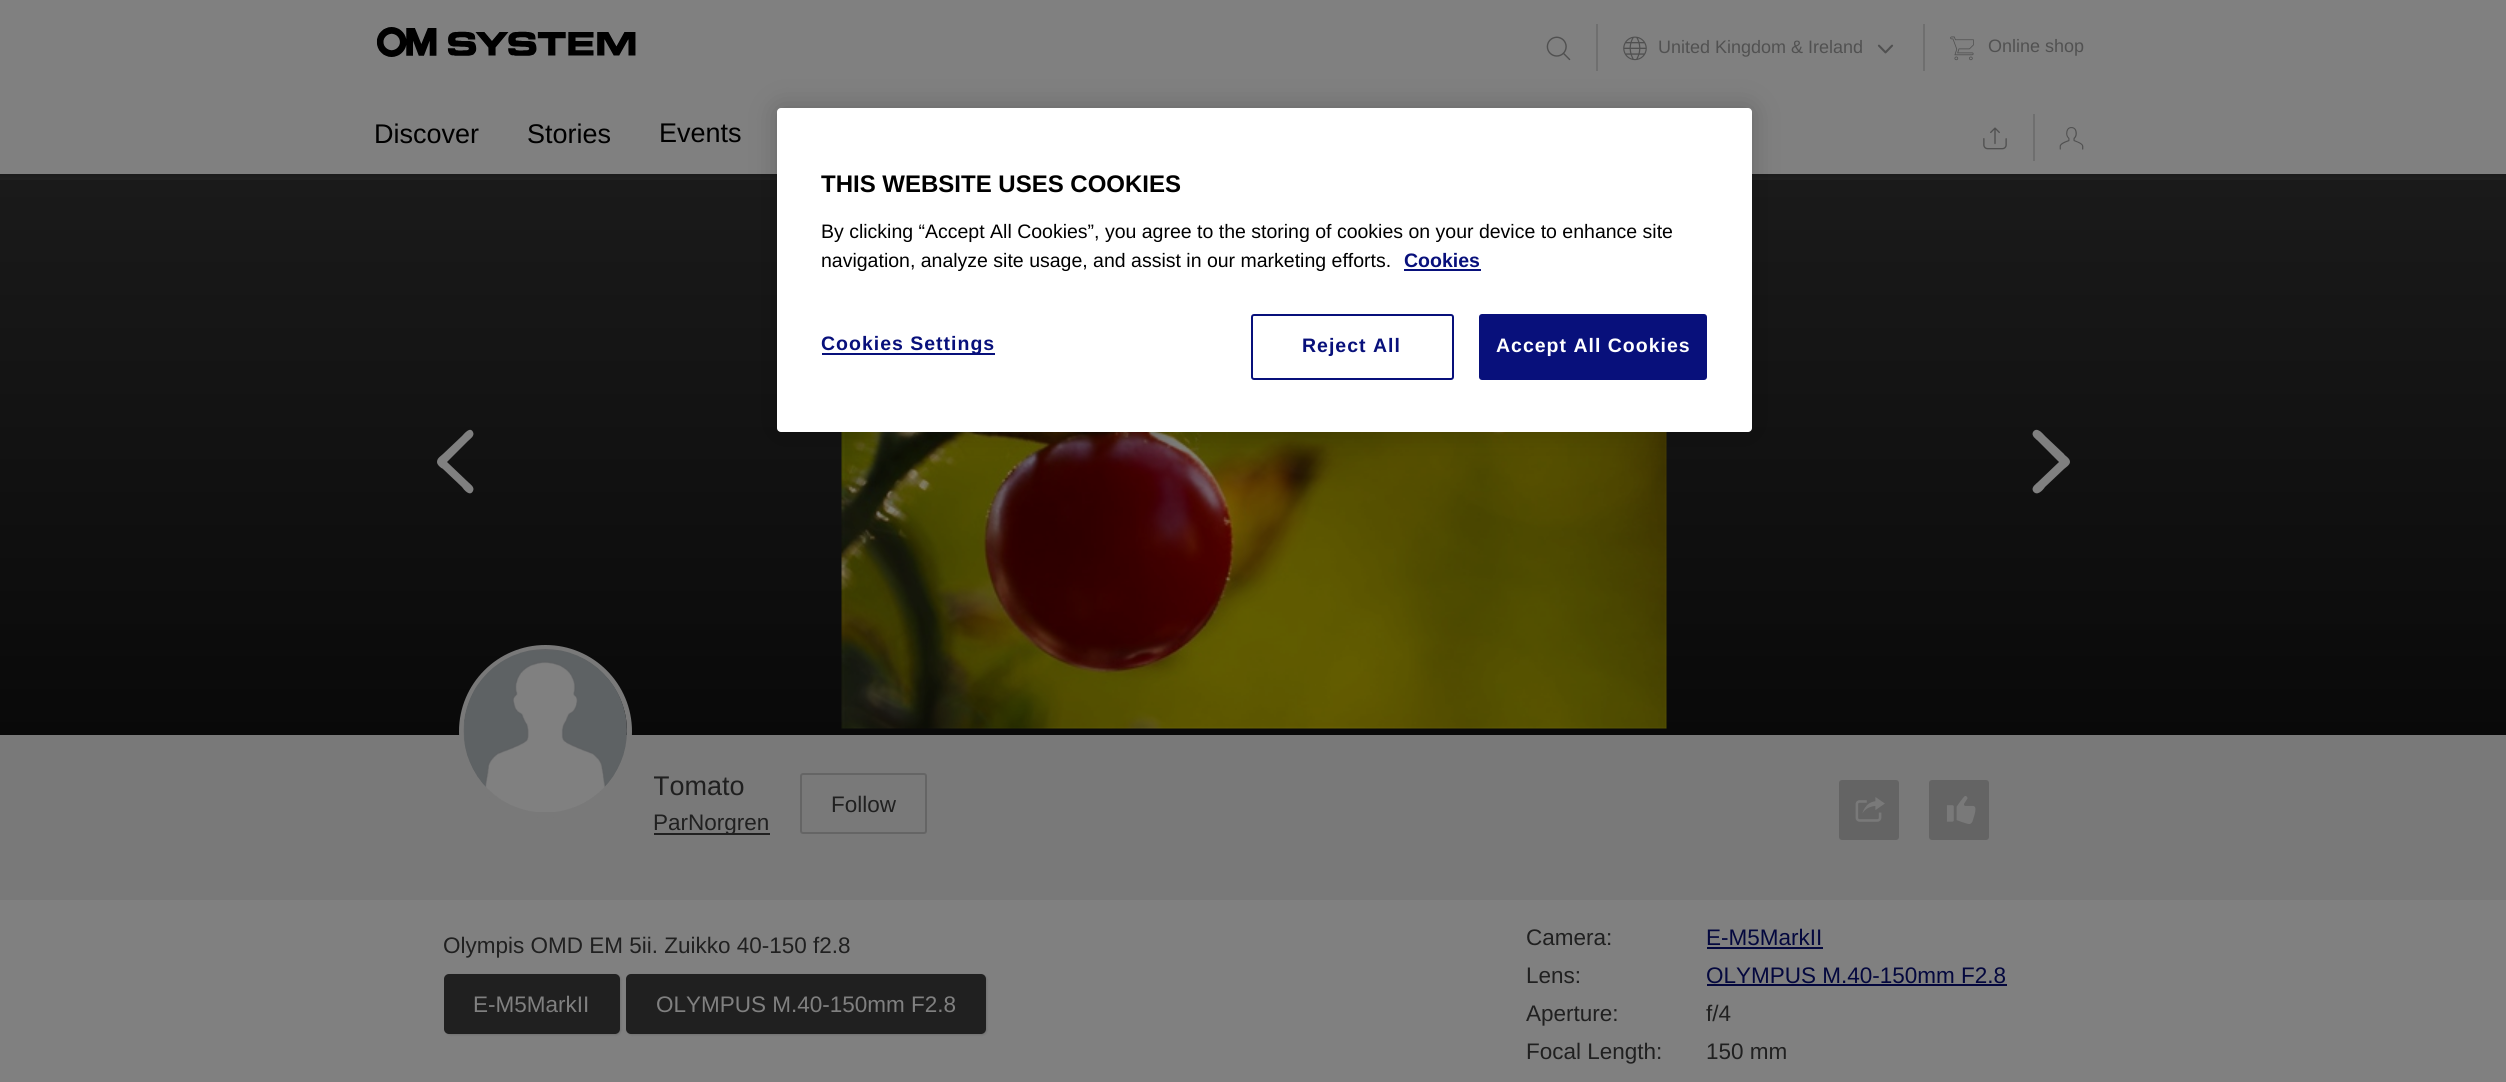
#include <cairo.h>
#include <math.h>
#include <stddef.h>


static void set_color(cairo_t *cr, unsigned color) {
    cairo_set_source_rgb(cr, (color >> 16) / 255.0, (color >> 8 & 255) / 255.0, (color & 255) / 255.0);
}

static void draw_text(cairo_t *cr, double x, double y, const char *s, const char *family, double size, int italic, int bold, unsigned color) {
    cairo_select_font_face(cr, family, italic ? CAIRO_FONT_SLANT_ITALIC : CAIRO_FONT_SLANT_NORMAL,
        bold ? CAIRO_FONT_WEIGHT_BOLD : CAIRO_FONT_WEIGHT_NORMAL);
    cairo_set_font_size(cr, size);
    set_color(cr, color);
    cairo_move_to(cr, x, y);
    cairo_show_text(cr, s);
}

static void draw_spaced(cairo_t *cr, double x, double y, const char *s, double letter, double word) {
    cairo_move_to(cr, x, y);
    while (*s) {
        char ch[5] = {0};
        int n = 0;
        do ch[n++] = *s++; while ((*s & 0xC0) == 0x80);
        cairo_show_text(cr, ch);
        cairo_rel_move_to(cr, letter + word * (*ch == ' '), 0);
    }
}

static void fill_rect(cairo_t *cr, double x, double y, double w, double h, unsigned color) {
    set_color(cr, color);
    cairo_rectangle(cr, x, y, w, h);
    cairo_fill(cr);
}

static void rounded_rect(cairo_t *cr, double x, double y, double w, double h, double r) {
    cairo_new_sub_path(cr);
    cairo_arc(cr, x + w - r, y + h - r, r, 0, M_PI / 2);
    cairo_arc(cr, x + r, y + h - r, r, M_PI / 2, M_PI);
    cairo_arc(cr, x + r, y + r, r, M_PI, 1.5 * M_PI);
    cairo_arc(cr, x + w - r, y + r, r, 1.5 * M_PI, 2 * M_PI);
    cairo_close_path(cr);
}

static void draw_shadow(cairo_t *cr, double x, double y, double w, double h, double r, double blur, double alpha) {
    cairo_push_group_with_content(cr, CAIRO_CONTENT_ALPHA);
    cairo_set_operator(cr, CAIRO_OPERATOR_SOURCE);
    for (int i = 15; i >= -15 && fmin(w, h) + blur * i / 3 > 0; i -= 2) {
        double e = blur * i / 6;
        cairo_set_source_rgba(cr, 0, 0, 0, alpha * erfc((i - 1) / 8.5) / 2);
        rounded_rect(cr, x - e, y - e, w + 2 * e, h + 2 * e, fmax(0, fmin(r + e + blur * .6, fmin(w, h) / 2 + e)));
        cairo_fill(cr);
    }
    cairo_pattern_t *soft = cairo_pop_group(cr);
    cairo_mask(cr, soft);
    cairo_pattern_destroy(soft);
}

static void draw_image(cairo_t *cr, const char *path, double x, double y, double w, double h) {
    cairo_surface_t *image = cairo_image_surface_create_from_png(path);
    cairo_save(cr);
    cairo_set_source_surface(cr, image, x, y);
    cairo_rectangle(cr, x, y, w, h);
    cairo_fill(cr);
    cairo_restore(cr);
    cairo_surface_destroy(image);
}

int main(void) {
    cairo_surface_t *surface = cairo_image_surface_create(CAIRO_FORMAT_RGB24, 2506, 1082);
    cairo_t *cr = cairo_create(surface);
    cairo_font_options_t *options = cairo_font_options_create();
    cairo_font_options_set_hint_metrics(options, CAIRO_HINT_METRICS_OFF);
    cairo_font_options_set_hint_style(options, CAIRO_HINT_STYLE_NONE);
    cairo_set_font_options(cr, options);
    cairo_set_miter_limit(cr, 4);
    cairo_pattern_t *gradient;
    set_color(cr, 0x808080);
    cairo_paint(cr);
    fill_rect(cr, 0, 174, 2506, 6, 0x202020);
    gradient = cairo_pattern_create_linear(1253, 180, 1253, 900);
    cairo_pattern_add_color_stop_rgba(gradient, 0, 0.102, 0.102, 0.102, 1);
    cairo_pattern_add_color_stop_rgba(gradient, 1, 0.016, 0.016, 0.016, 1);
    cairo_set_source(cr, gradient);
    cairo_pattern_destroy(gradient);
    cairo_rectangle(cr, 0, 180, 2506, 555);
    cairo_fill(cr);
    set_color(cr, 0x000000);
    draw_shadow(cr, -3, -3, 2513, 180, 0, 2, 0.15);
    fill_rect(cr, 0, 0, 2506, 174, 0x808080);
    draw_image(cr, "assets/img1.png", 376, 27, 260, 30);
    fill_rect(cr, 1596, 24, 2, 47, 0x6F6F6F);
    draw_image(cr, "assets/img2.png", 1546, 36, 25, 25);
    fill_rect(cr, 1923, 24, 2, 47, 0x6F6F6F);
    draw_image(cr, "assets/img3.png", 1623, 36, 24, 25);
    draw_text(cr, 1658, 53, "United Kingdom & Ireland", "Liberation Sans", 18, 0, 0, 0x515151);
    draw_image(cr, "assets/img4.png", 1877, 44, 17, 10);
    draw_image(cr, "assets/img5.png", 1950, 36, 24, 25);
    draw_text(cr, 1988, 52, "Online shop", "Liberation Sans", 18, 0, 0, 0x515151);
    draw_text(cr, 374, 143, "Discover", "Liberation Sans", 27, 0, 0, 0x000000);
    draw_text(cr, 527, 143, "Stories", "Liberation Sans", 27, 0, 0, 0x000000);
    draw_text(cr, 659, 142, "Events", "Liberation Sans", 27, 0, 0, 0x000000);
    fill_rect(cr, 2033, 114, 2, 47, 0x6F6F6F);
    draw_image(cr, "assets/img6.png", 1983, 127, 24, 23);
    draw_image(cr, "assets/img7.png", 2059, 127, 25, 23);
    draw_image(cr, "assets/img8.png", 841, 432, 826, 297);
    set_color(cr, 0x000000);
    draw_shadow(cr, 777, 108, 975, 324, 4, 13.5, 0.2);
    set_color(cr, 0xFFFFFF);
    rounded_rect(cr, 777, 108, 975, 324, 4);
    cairo_fill(cr);
    draw_text(cr, 821, 192, "THIS WEBSITE USES COOKIES", "Liberation Sans", 24, 0, 1, 0x000000);
    draw_text(cr, 821, 238, "By clicking “Accept All Cookies”, you agree to the storing of cookies on your device to enhance site", "Liberation Sans", 19.5, 0, 0, 0x000000);
    draw_text(cr, 821, 267, "navigation, analyze site usage, and assist in our marketing efforts.", "Liberation Sans", 19.5, 0, 0, 0x000000);
    draw_text(cr, 1404, 267, "Cookies", "Liberation Sans", 19.5, 0, 1, 0x08107B);
    fill_rect(cr, 1404, 269, 77, 2, 0x08107B);
    fill_rect(cr, 822, 353, 173, 2, 0x08107B);
    draw_spaced(cr, 821, 350, "Cookies Settings", 1, 0);
    rounded_rect(cr, 1252, 315, 201, 64, 2);
    cairo_stroke(cr);
    draw_spaced(cr, 1302, 352, "Reject All", 1, 0);
    rounded_rect(cr, 1480, 315, 226, 64, 2);
    cairo_fill_preserve(cr);
    cairo_stroke(cr);
    set_color(cr, 0xFFFFFF);
    draw_spaced(cr, 1496, 352, "Accept All Cookies", 1, 0);
    set_color(cr, 0x808080);
    cairo_new_path(cr);
    cairo_move_to(cr, 437, 462);
    cairo_curve_to(cr, 437, 465, 441, 468, 443, 469);
    cairo_line_to(cr, 462, 487);
    cairo_curve_to(cr, 464, 490, 470, 497, 473, 491);
    cairo_curve_to(cr, 475, 487, 470, 484, 468, 482);
    cairo_line_to(cr, 447, 462);
    cairo_line_to(cr, 468, 441);
    cairo_curve_to(cr, 470, 439, 475, 436, 473, 432);
    cairo_curve_to(cr, 470, 426, 464, 434, 462, 436);
    cairo_line_to(cr, 443, 454);
    cairo_curve_to(cr, 441, 456, 437, 458, 437, 462);
    cairo_close_path(cr);
    cairo_fill(cr);
    cairo_new_path(cr);
    cairo_move_to(cr, 2070, 462);
    cairo_curve_to(cr, 2070, 465, 2065, 468, 2064, 469);
    cairo_line_to(cr, 2045, 487);
    cairo_curve_to(cr, 2043, 490, 2037, 497, 2033, 491);
    cairo_curve_to(cr, 2031, 487, 2036, 484, 2038, 482);
    cairo_line_to(cr, 2059, 462);
    cairo_line_to(cr, 2038, 441);
    cairo_curve_to(cr, 2036, 439, 2031, 436, 2033, 432);
    cairo_curve_to(cr, 2037, 426, 2043, 434, 2045, 436);
    cairo_line_to(cr, 2064, 454);
    cairo_curve_to(cr, 2065, 456, 2070, 458, 2070, 462);
    cairo_close_path(cr);
    cairo_fill(cr);
    fill_rect(cr, 0, 735, 2506, 165, 0x797979);
    cairo_arc(cr, 545.5, 731.5, 84, 0, 2 * M_PI);
    cairo_set_line_width(cr, 5);
    cairo_stroke(cr);
    draw_image(cr, "assets/img9.png", 463, 649, 164, 163);
    cairo_save(cr);
    cairo_rectangle(cr, 654, 773, 92, 28);
    cairo_clip(cr);
    draw_text(cr, 653, 795, "Tomato", "Liberation Sans", 27, 0, 0, 0x202020);
    cairo_restore(cr);
    fill_rect(cr, 654, 833, 116, 2, 0x202020);
    draw_text(cr, 653, 830, "ParNorgren", "Liberation Sans", 22.5, 0, 0, 0x202020);
    rounded_rect(cr, 801, 774, 125, 59, 2);
    set_color(cr, 0x656565);
    cairo_set_line_width(cr, 2);
    cairo_stroke(cr);
    draw_text(cr, 831, 812, "Follow", "Liberation Sans", 22.5, 0, 0, 0x202020);
    draw_image(cr, "assets/img10.png", 1839, 780, 60, 60);
    draw_image(cr, "assets/img11.png", 1929, 780, 60, 60);
    draw_text(cr, 443, 953, "Olympis OMD EM 5ii. Zuikko 40-150 f2.8", "Liberation Sans", 22.5, 0, 0, 0x202020);
    set_color(cr, 0x000000);
    draw_shadow(cr, 446, 975, 175, 60, 5, 1, 0.12);
    set_color(cr, 0x202020);
    rounded_rect(cr, 444, 974, 176, 60, 5);
    cairo_fill(cr);
    draw_text(cr, 473, 1012, "E-M5MarkII", "Liberation Sans", 22.5, 0, 0, 0x808080);
    set_color(cr, 0x000000);
    draw_shadow(cr, 627, 975, 360, 60, 5, 1, 0.12);
    set_color(cr, 0x202020);
    rounded_rect(cr, 626, 974, 360, 60, 5);
    cairo_fill(cr);
    draw_text(cr, 656, 1012, "OLYMPUS M.40-150mm F2.8", "Liberation Sans", 22.5, 0, 0, 0x808080);
    draw_text(cr, 1526, 945, "Camera:", "Liberation Sans", 22.5, 0, 0, 0x202020);
    draw_text(cr, 1706, 945, "E-M5MarkII", "Liberation Sans", 22.5, 0, 0, 0x04083E);
    fill_rect(cr, 1707, 947, 116, 2, 0x04083E);
    draw_text(cr, 1526, 983, "Lens:", "Liberation Sans", 22.5, 0, 0, 0x202020);
    draw_text(cr, 1706, 983, "OLYMPUS M.40-150mm F2.8", "Liberation Sans", 22.5, 0, 0, 0x04083E);
    fill_rect(cr, 1707, 984, 300, 2, 0x04083E);
    draw_text(cr, 1526, 1021, "Aperture:", "Liberation Sans", 22.5, 0, 0, 0x202020);
    draw_text(cr, 1706, 1021, "f/4", "Liberation Sans", 22.5, 0, 0, 0x202020);
    draw_text(cr, 1526, 1059, "Focal Length:", "Liberation Sans", 22.5, 0, 0, 0x202020);
    draw_text(cr, 1706, 1059, "150 mm", "Liberation Sans", 22.5, 0, 0, 0x202020);
    cairo_surface_write_to_png(surface, "output.png");
    cairo_font_options_destroy(options);
    cairo_destroy(cr);
    cairo_surface_destroy(surface);
    return 0;
}
